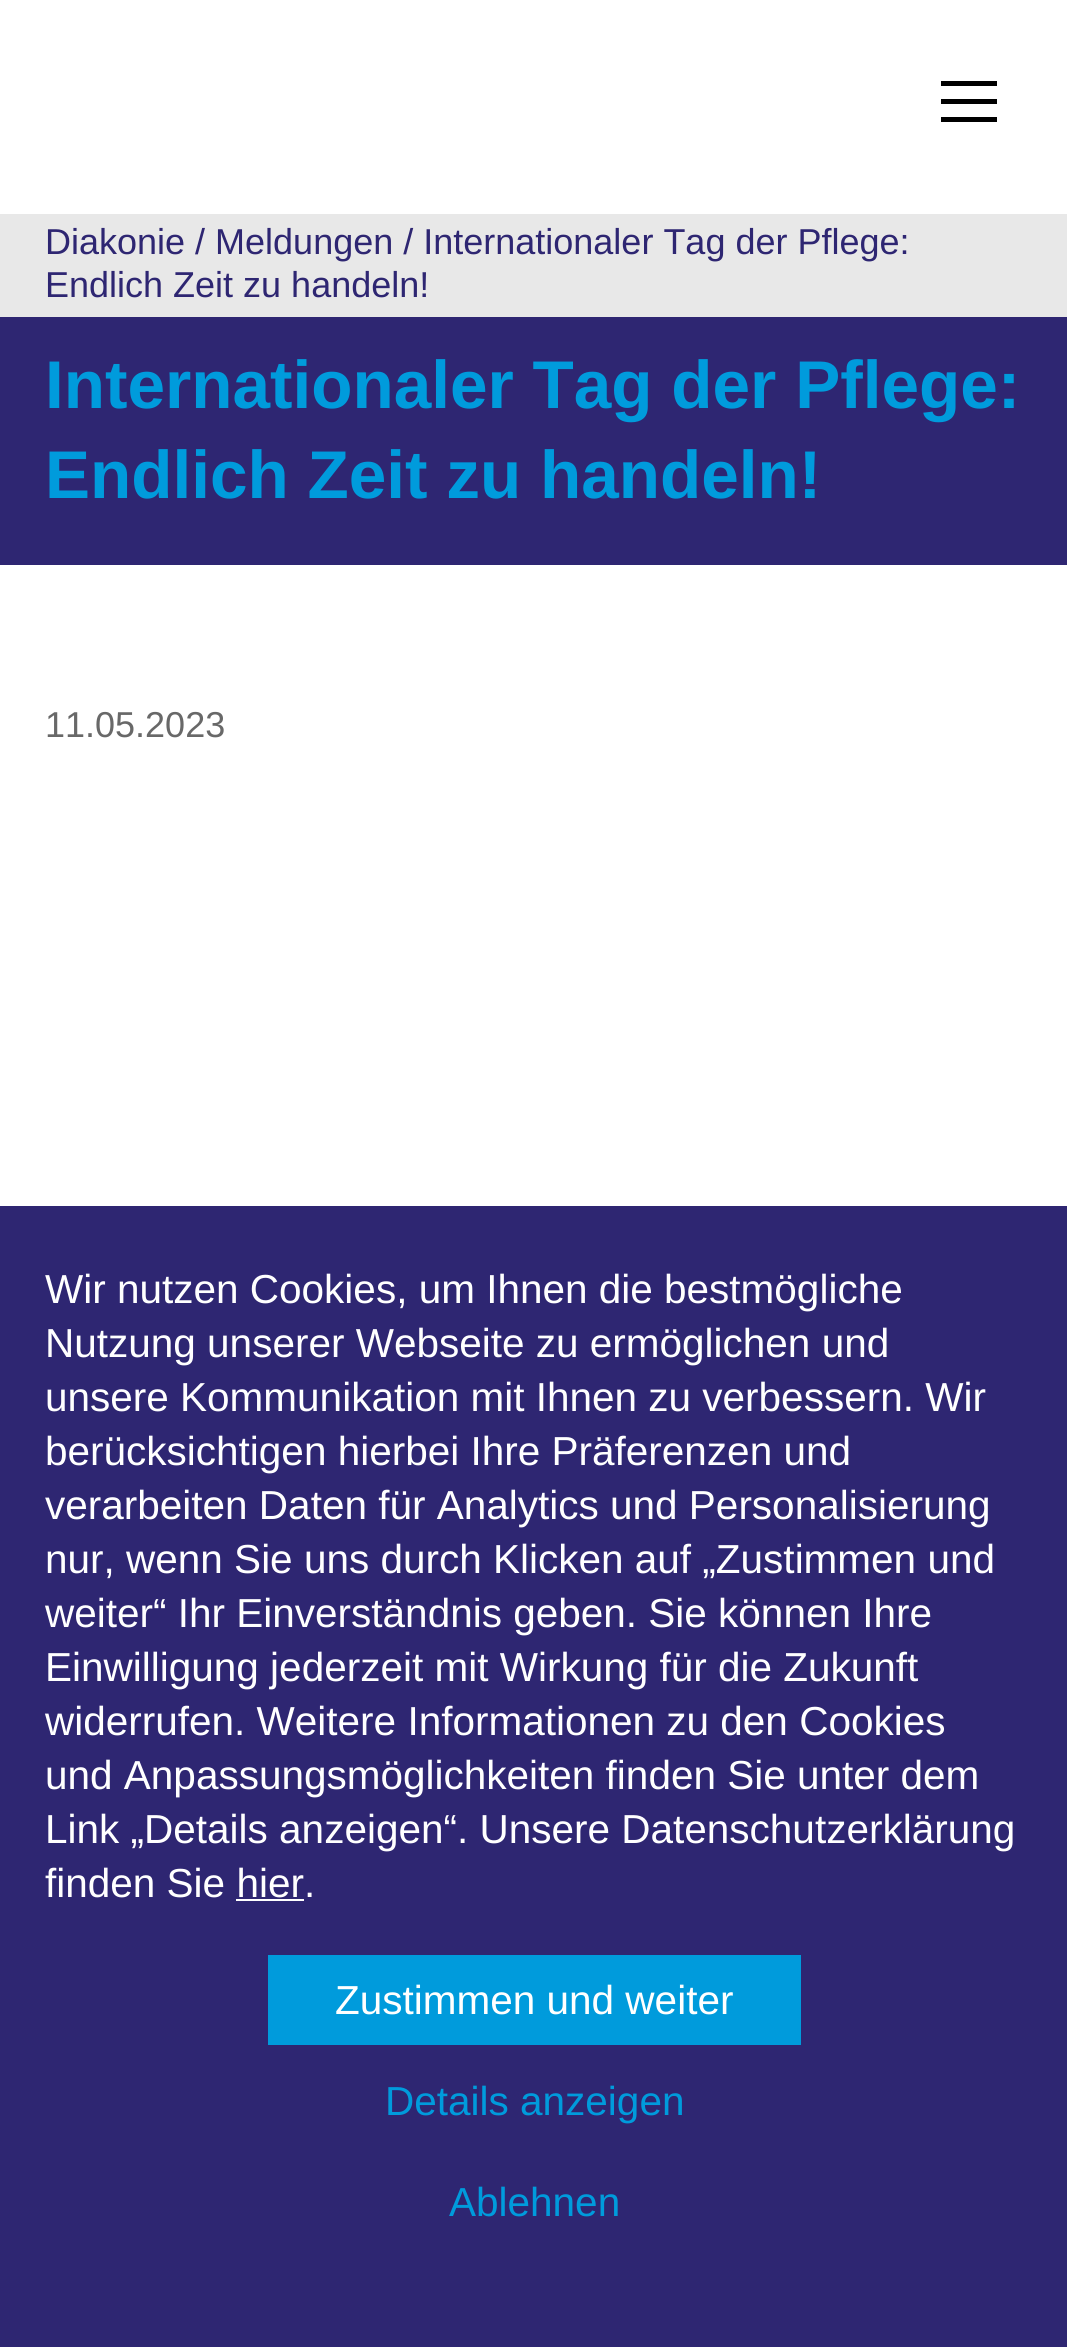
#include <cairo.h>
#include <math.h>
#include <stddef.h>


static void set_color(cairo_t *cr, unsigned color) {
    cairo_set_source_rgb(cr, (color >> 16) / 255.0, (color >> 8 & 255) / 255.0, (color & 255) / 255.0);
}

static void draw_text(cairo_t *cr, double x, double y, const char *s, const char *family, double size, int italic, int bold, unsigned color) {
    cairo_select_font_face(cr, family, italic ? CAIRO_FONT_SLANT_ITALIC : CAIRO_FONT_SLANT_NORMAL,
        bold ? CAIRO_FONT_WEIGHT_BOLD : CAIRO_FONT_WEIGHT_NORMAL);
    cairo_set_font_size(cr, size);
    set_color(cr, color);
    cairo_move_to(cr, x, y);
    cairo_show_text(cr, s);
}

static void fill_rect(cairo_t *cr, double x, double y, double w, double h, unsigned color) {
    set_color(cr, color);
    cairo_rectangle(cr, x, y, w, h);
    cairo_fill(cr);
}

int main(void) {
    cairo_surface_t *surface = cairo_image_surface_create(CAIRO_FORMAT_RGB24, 1067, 2347);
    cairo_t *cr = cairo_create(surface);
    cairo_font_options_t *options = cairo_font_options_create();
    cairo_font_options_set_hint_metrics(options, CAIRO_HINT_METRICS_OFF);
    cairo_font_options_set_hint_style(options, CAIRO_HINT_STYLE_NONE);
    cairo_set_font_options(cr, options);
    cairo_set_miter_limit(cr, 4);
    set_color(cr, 0xFFFFFF);
    cairo_paint(cr);
    fill_rect(cr, 941, 81, 56, 5, 0x000000);
    fill_rect(cr, 941, 99, 56, 5, 0x000000);
    fill_rect(cr, 941, 117, 56, 5, 0x000000);
    fill_rect(cr, 0, 214, 1067, 103, 0xE8E8E8);
    draw_text(cr, 45, 254, "Diakonie / Meldungen / Internationaler Tag der Pflege:", "Liberation Sans", 36, 0, 0, 0x2E2672);
    draw_text(cr, 45, 297, "Endlich Zeit zu handeln!", "Liberation Sans", 36, 0, 0, 0x2E2672);
    fill_rect(cr, 0, 317, 1067, 248, 0x2E2672);
    draw_text(cr, 45, 408, "Internationaler Tag der Pflege:", "Liberation Sans", 67.5, 0, 1, 0x009BDC);
    draw_text(cr, 45, 498, "Endlich Zeit zu handeln!", "Liberation Sans", 67.5, 0, 1, 0x009BDC);
    draw_text(cr, 45, 737, "11.05.2023", "Liberation Sans", 36, 0, 0, 0x686868);
    fill_rect(cr, 0, 1206, 1067, 1141, 0x2E2672);
    draw_text(cr, 45, 1303, "Wir nutzen Cookies, um Ihnen die bestmögliche", "Liberation Sans", 40.5, 0, 0, 0xFFFFFF);
    draw_text(cr, 45, 1357, "Nutzung unserer Webseite zu ermöglichen und", "Liberation Sans", 40.5, 0, 0, 0xFFFFFF);
    draw_text(cr, 45, 1411, "unsere Kommunikation mit Ihnen zu verbessern. Wir", "Liberation Sans", 40.5, 0, 0, 0xFFFFFF);
    draw_text(cr, 45, 1465, "berücksichtigen hierbei Ihre Präferenzen und", "Liberation Sans", 40.5, 0, 0, 0xFFFFFF);
    draw_text(cr, 45, 1519, "verarbeiten Daten für Analytics und Personalisierung", "Liberation Sans", 40.5, 0, 0, 0xFFFFFF);
    draw_text(cr, 45, 1573, "nur, wenn Sie uns durch Klicken auf „Zustimmen und", "Liberation Sans", 40.5, 0, 0, 0xFFFFFF);
    draw_text(cr, 45, 1627, "weiter“ Ihr Einverständnis geben. Sie können Ihre", "Liberation Sans", 40.5, 0, 0, 0xFFFFFF);
    draw_text(cr, 45, 1681, "Einwilligung jederzeit mit Wirkung für die Zukunft", "Liberation Sans", 40.5, 0, 0, 0xFFFFFF);
    draw_text(cr, 45, 1735, "widerrufen. Weitere Informationen zu den Cookies", "Liberation Sans", 40.5, 0, 0, 0xFFFFFF);
    draw_text(cr, 45, 1789, "und Anpassungsmöglichkeiten finden Sie unter dem", "Liberation Sans", 40.5, 0, 0, 0xFFFFFF);
    draw_text(cr, 45, 1843, "Link „Details anzeigen“. Unsere Datenschutzerklärung", "Liberation Sans", 40.5, 0, 0, 0xFFFFFF);
    draw_text(cr, 45, 1897, "finden Sie hier.", "Liberation Sans", 40.5, 0, 0, 0xFFFFFF);
    fill_rect(cr, 236, 1899, 68, 2, 0xFFFFFF);
    fill_rect(cr, 268, 1955, 533, 90, 0x009BDC);
    draw_text(cr, 335, 2014, "Zustimmen und weiter", "Liberation Sans", 40.5, 0, 0, 0xFFFFFF);
    draw_text(cr, 385, 2115, "Details anzeigen", "Liberation Sans", 40.5, 0, 0, 0x009BDC);
    draw_text(cr, 449, 2216, "Ablehnen", "Liberation Sans", 40.5, 0, 0, 0x009BDC);
    cairo_surface_write_to_png(surface, "output.png");
    cairo_font_options_destroy(options);
    cairo_destroy(cr);
    cairo_surface_destroy(surface);
    return 0;
}
